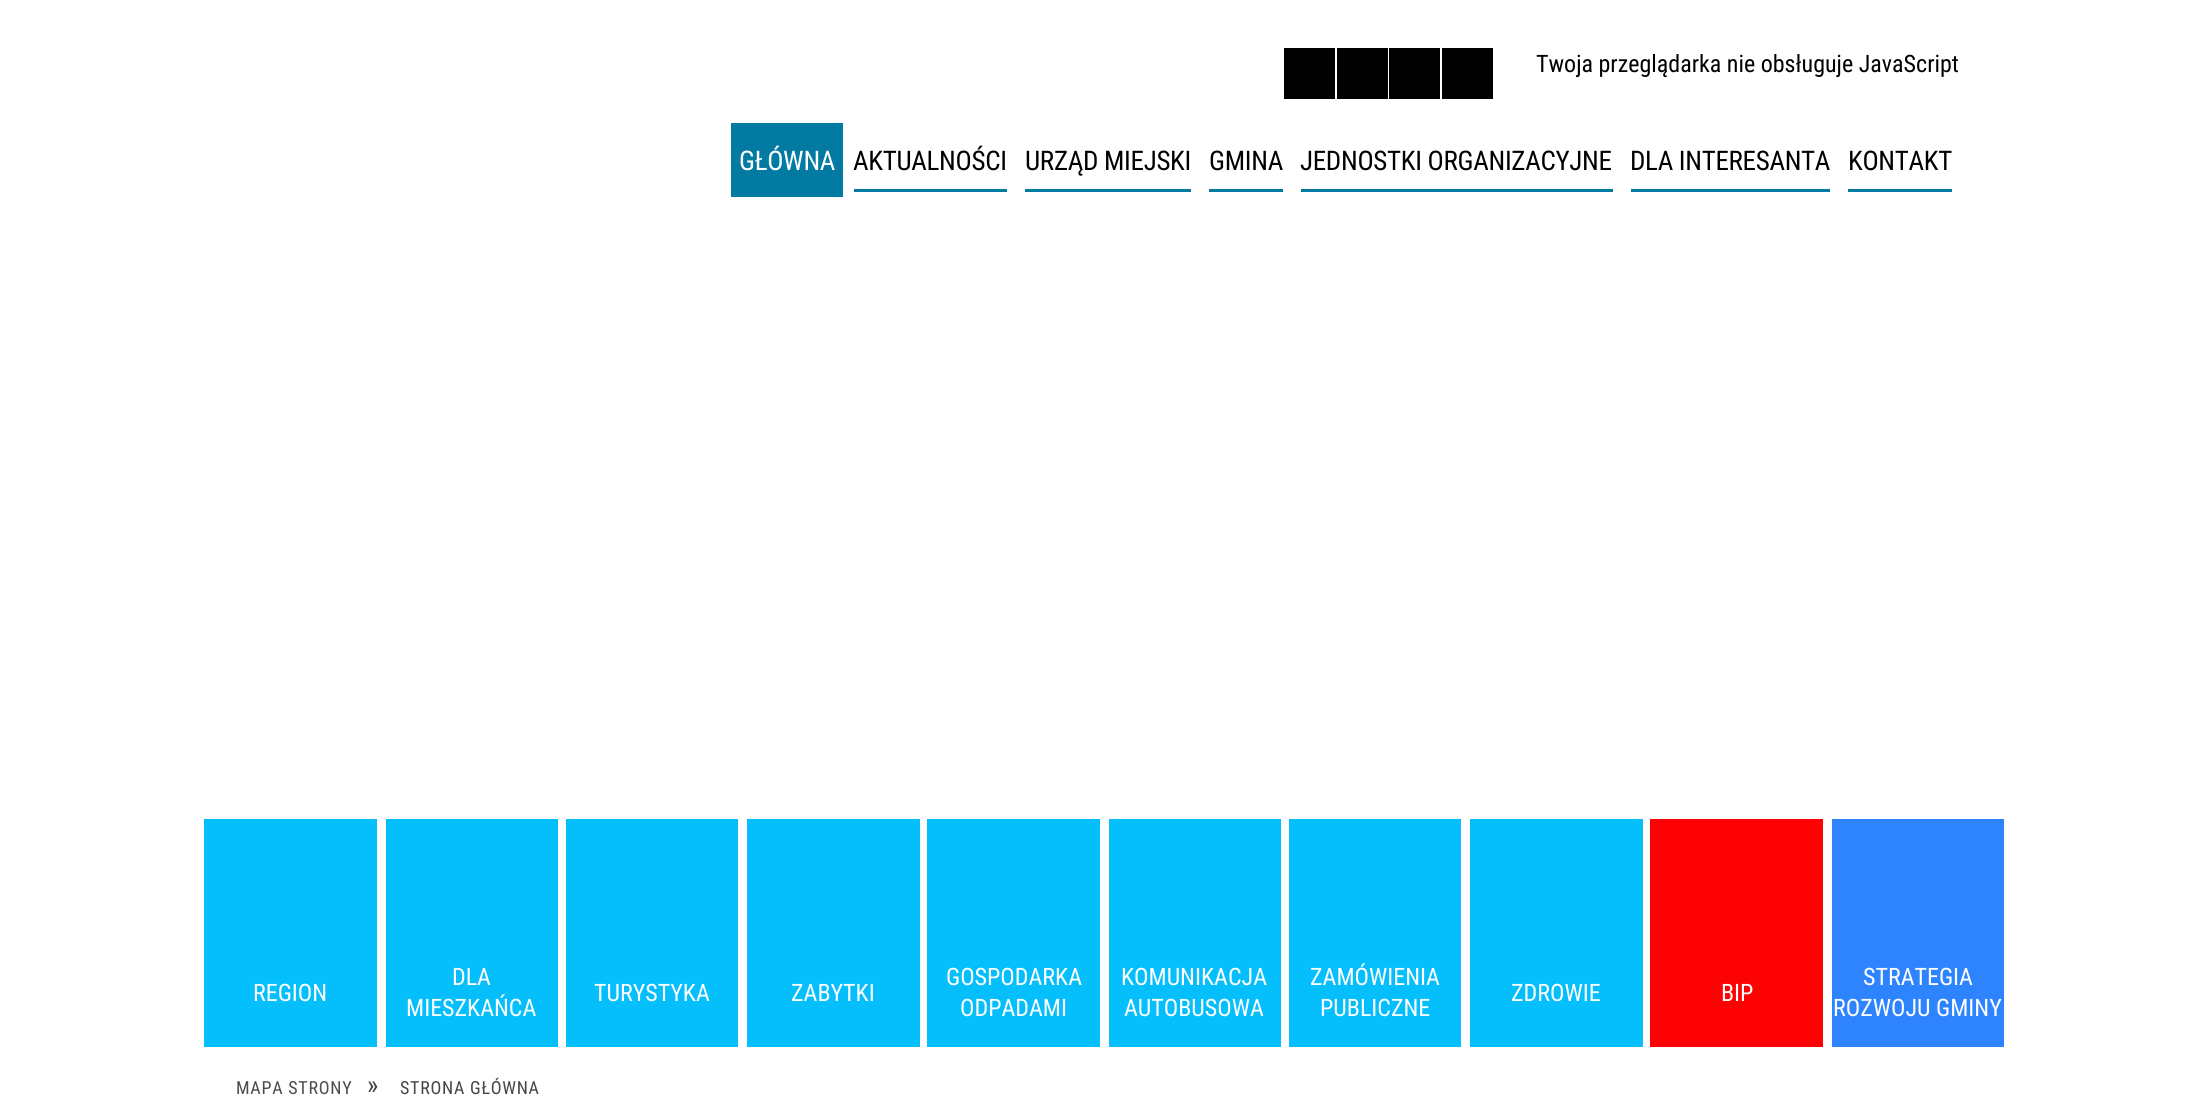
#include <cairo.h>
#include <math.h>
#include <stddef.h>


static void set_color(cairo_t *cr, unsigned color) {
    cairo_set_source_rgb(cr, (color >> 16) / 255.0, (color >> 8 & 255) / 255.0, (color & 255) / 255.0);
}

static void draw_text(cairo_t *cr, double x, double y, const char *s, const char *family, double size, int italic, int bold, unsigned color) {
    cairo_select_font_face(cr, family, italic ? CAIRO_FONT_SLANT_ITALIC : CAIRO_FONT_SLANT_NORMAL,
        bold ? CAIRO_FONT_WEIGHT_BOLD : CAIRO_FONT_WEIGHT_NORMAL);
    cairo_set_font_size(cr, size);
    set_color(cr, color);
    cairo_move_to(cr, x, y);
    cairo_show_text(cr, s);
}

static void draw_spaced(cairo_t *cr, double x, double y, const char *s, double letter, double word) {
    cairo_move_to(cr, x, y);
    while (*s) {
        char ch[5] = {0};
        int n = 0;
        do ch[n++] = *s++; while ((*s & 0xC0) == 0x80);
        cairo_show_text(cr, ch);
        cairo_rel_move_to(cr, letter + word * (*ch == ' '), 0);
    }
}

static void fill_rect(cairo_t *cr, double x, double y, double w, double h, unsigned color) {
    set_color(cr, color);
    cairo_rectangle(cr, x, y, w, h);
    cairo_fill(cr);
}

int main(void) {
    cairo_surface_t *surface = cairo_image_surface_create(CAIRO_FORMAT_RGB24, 2208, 1101);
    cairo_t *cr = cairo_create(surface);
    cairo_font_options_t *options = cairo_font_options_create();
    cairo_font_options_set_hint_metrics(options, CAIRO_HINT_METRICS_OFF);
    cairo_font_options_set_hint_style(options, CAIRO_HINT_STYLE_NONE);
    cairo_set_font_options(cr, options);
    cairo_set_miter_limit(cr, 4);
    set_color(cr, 0xFFFFFF);
    cairo_paint(cr);
    fill_rect(cr, 1284, 48, 51, 51, 0x000000);
    fill_rect(cr, 1337, 48, 51, 51, 0x000000);
    fill_rect(cr, 1389, 48, 51, 51, 0x000000);
    fill_rect(cr, 1442, 48, 51, 51, 0x000000);
    draw_text(cr, 1536, 72, "Twoja przeglądarka nie obsługuje JavaScript", "Roboto Condensed", 24, 0, 0, 0x000000);
    fill_rect(cr, 731, 123, 112, 74, 0x037AA2);
    cairo_set_font_size(cr, 27);
    set_color(cr, 0xFFFFFF);
    draw_spaced(cr, 739, 170, "GŁÓWNA", -0.3, 0);
    fill_rect(cr, 854, 189, 153, 3, 0x037AA2);
    set_color(cr, 0x000000);
    draw_spaced(cr, 853, 170, "AKTUALNOŚCI", -0.3, 0);
    fill_rect(cr, 1025, 189, 166, 3, 0x037AA2);
    set_color(cr, 0x000000);
    draw_spaced(cr, 1025, 170, "URZĄD MIEJSKI", -0.3, 0);
    fill_rect(cr, 1209, 189, 74, 3, 0x037AA2);
    set_color(cr, 0x000000);
    draw_spaced(cr, 1209, 170, "GMINA", -0.3, 0);
    fill_rect(cr, 1301, 189, 312, 3, 0x037AA2);
    set_color(cr, 0x000000);
    draw_spaced(cr, 1300, 170, "JEDNOSTKI ORGANIZACYJNE", -0.3, 0);
    fill_rect(cr, 1631, 189, 199, 3, 0x037AA2);
    set_color(cr, 0x000000);
    draw_spaced(cr, 1630, 170, "DLA INTERESANTA", -0.3, 0);
    fill_rect(cr, 1848, 189, 104, 3, 0x037AA2);
    set_color(cr, 0x000000);
    draw_spaced(cr, 1848, 170, "KONTAKT", -0.3, 0);
    fill_rect(cr, 204, 819, 173, 228, 0x05BFFC);
    draw_text(cr, 253, 1001, "REGION", "Roboto Condensed", 24, 0, 0, 0xFFFFFF);
    fill_rect(cr, 386, 819, 172, 228, 0x05BFFC);
    draw_text(cr, 452, 985, "DLA", "Roboto Condensed", 24, 0, 0, 0xFFFFFF);
    draw_text(cr, 406, 1016, "MIESZKAŃCA", "Roboto Condensed", 24, 0, 0, 0xFFFFFF);
    fill_rect(cr, 566, 819, 172, 228, 0x05BFFC);
    draw_text(cr, 594, 1001, "TURYSTYKA", "Roboto Condensed", 24, 0, 0, 0xFFFFFF);
    fill_rect(cr, 747, 819, 173, 228, 0x05BFFC);
    draw_text(cr, 791, 1001, "ZABYTKI", "Roboto Condensed", 24, 0, 0, 0xFFFFFF);
    fill_rect(cr, 927, 819, 173, 228, 0x05BFFC);
    draw_text(cr, 946, 985, "GOSPODARKA", "Roboto Condensed", 24, 0, 0, 0xFFFFFF);
    draw_text(cr, 960, 1016, "ODPADAMI", "Roboto Condensed", 24, 0, 0, 0xFFFFFF);
    fill_rect(cr, 1109, 819, 172, 228, 0x05BFFC);
    draw_text(cr, 1121, 985, "KOMUNIKACJA", "Roboto Condensed", 24, 0, 0, 0xFFFFFF);
    draw_text(cr, 1124, 1016, "AUTOBUSOWA", "Roboto Condensed", 24, 0, 0, 0xFFFFFF);
    fill_rect(cr, 1289, 819, 172, 228, 0x05BFFC);
    draw_text(cr, 1310, 985, "ZAMÓWIENIA", "Roboto Condensed", 24, 0, 0, 0xFFFFFF);
    draw_text(cr, 1320, 1016, "PUBLICZNE", "Roboto Condensed", 24, 0, 0, 0xFFFFFF);
    fill_rect(cr, 1470, 819, 173, 228, 0x05BFFC);
    draw_text(cr, 1511, 1001, "ZDROWIE", "Roboto Condensed", 24, 0, 0, 0xFFFFFF);
    fill_rect(cr, 1650, 819, 173, 228, 0xFC0202);
    draw_text(cr, 1721, 1001, "BIP", "Roboto Condensed", 24, 0, 0, 0xFFFFFF);
    fill_rect(cr, 1832, 819, 172, 228, 0x2E84FF);
    draw_text(cr, 1863, 985, "STRATEGIA", "Roboto Condensed", 24, 0, 0, 0xFFFFFF);
    draw_text(cr, 1833, 1016, "ROZWOJU GMINY", "Roboto Condensed", 24, 0, 0, 0xFFFFFF);
    cairo_set_font_size(cr, 18);
    set_color(cr, 0x4C4C4C);
    draw_spaced(cr, 236, 1094, "MAPA STRONY", 0.75, 0);
    cairo_set_font_size(cr, 27);
    set_color(cr, 0x454547);
    draw_spaced(cr, 367, 1094, "»", 0.75, 0);
    cairo_set_font_size(cr, 18);
    draw_spaced(cr, 400, 1094, "STRONA GŁÓWNA", 0.75, 0);
    cairo_surface_write_to_png(surface, "output.png");
    cairo_font_options_destroy(options);
    cairo_destroy(cr);
    cairo_surface_destroy(surface);
    return 0;
}
